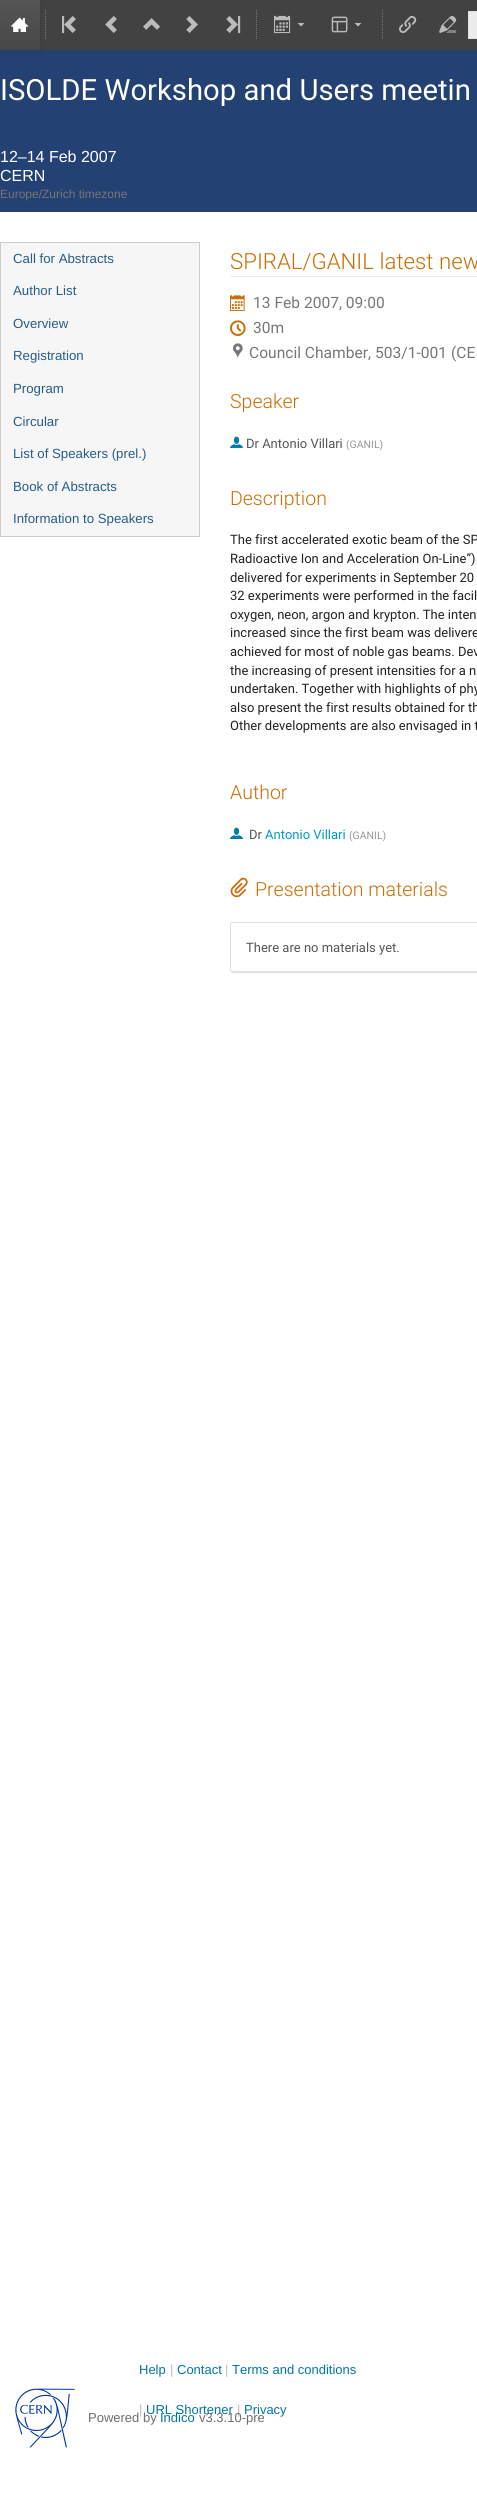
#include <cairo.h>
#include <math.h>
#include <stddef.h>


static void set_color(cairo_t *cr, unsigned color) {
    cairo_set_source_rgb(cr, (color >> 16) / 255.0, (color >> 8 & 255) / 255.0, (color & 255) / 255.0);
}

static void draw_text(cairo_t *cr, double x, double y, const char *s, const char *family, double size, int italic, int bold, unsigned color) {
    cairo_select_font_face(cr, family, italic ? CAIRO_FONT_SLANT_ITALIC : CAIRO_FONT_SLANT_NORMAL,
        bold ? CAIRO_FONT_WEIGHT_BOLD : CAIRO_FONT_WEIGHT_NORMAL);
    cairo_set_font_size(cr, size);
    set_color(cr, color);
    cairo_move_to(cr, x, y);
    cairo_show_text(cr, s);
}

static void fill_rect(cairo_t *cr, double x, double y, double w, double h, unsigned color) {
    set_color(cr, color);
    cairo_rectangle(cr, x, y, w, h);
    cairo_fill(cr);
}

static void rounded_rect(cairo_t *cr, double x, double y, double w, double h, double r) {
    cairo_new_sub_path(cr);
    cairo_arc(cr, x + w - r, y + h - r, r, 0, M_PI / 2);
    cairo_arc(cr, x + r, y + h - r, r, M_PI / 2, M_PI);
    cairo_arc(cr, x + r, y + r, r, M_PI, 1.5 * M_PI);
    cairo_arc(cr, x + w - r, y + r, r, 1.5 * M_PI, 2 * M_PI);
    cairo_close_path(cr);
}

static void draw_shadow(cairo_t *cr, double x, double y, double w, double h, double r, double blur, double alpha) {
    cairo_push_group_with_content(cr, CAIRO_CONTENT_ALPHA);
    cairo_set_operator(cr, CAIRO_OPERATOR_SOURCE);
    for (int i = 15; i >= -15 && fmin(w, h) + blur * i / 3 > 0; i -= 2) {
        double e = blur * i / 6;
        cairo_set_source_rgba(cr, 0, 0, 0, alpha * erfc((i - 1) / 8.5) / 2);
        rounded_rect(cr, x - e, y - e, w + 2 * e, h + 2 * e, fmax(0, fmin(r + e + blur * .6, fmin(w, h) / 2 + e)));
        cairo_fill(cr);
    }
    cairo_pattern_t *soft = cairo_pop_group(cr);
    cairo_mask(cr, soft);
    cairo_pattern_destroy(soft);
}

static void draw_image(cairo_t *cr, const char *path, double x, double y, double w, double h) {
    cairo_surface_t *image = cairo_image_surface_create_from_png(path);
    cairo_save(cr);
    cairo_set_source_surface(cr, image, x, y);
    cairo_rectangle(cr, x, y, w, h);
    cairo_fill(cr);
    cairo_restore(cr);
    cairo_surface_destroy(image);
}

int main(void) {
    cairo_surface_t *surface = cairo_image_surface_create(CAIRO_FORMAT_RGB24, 477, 2501);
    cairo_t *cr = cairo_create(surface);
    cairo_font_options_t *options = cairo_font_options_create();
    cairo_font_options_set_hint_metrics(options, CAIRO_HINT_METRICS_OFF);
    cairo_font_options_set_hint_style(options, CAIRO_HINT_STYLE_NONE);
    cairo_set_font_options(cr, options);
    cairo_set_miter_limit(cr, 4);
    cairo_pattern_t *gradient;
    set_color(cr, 0xFFFFFF);
    cairo_paint(cr);
    fill_rect(cr, 40, 0, 437, 50, 0x424242);
    fill_rect(cr, 0, 50, 477, 162, 0x234173);
    set_color(cr, 0x141414);
    draw_shadow(cr, 1, 1, 40, 50, 0, 2, 0.1);
    gradient = cairo_pattern_create_linear(20, 0, 20, 50);
    cairo_pattern_add_color_stop_rgba(gradient, 0, 0.333, 0.333, 0.333, 1);
    cairo_pattern_add_color_stop_rgba(gradient, 1, 0.282, 0.282, 0.282, 1);
    cairo_set_source(cr, gradient);
    cairo_pattern_destroy(gradient);
    cairo_rectangle(cr, 0, 0, 40, 50);
    cairo_fill(cr);
    draw_image(cr, "assets/img1.png", 11, 17, 18, 15);
    cairo_new_path(cr);
    cairo_move_to(cr, 45.5, 10);
    cairo_line_to(cr, 45.5, 40);
    set_color(cr, 0x777777);
    cairo_set_line_width(cr, 1);
    cairo_set_dash(cr, (double[]){1, 1}, 2, 0);
    cairo_stroke(cr);
    draw_image(cr, "assets/img2.png", 62, 15, 14, 19);
    draw_image(cr, "assets/img3.png", 105, 16, 12, 17);
    draw_image(cr, "assets/img4.png", 143, 18, 17, 12);
    draw_image(cr, "assets/img5.png", 186, 16, 12, 17);
    draw_image(cr, "assets/img6.png", 226, 15, 15, 19);
    cairo_new_path(cr);
    cairo_move_to(cr, 256.5, 10);
    cairo_line_to(cr, 256.5, 40);
    cairo_stroke(cr);
    draw_image(cr, "assets/img7.png", 274, 15, 17, 19);
    set_color(cr, 0xBBBBBB);
    cairo_new_path(cr);
    cairo_move_to(cr, 297.5, 23);
    cairo_line_to(cr, 301, 26.5);
    cairo_line_to(cr, 304.5, 23);
    cairo_close_path(cr);
    cairo_fill(cr);
    draw_image(cr, "assets/img8.png", 331, 16, 17, 17);
    cairo_new_path(cr);
    cairo_move_to(cr, 354.5, 23);
    cairo_line_to(cr, 358, 26.5);
    cairo_line_to(cr, 361.5, 23);
    cairo_close_path(cr);
    cairo_fill(cr);
    cairo_new_path(cr);
    cairo_move_to(cr, 382.5, 10);
    cairo_line_to(cr, 382.5, 40);
    set_color(cr, 0x777777);
    cairo_stroke(cr);
    draw_image(cr, "assets/img9.png", 399, 15, 18, 19);
    draw_image(cr, "assets/img10.png", 439, 16, 18, 17);
    fill_rect(cr, 469, 12, 8, 26, 0xECECEC);
    fill_rect(cr, 468, 11, 9, 1, 0xDFDFDF);
    fill_rect(cr, 468, 38, 9, 1, 0xDFDFDF);
    fill_rect(cr, 468, 11, 1, 28, 0xDFDFDF);
    draw_text(cr, 0, 100, "ISOLDE Workshop and Users meetin", "Roboto", 29.3, 0, 0, 0xFFFFFF);
    draw_text(cr, 0, 162, "12–14 Feb 2007", "Liberation Sans", 16, 0, 0, 0xFFFFFF);
    draw_text(cr, 0, 181, "CERN", "Liberation Sans", 16, 0, 0, 0xFFFFFF);
    draw_text(cr, 0, 198, "Europe/Zurich timezone", "Liberation Sans", 12, 0, 0, 0x777777);
    set_color(cr, 0xF6F6F6);
    cairo_rectangle(cr, 0.5, 242.5, 199, 294);
    cairo_fill_preserve(cr);
    set_color(cr, 0xCCCCCC);
    cairo_set_dash(cr, NULL, 0, 0);
    cairo_stroke(cr);
    draw_text(cr, 13, 263, "Call for Abstracts", "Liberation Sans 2", 13.25, 0, 0, 0x275C86);
    draw_text(cr, 13, 295, "Author List", "Liberation Sans 2", 13.25, 0, 0, 0x275C86);
    draw_text(cr, 13, 328, "Overview", "Liberation Sans 2", 13.25, 0, 0, 0x275C86);
    draw_text(cr, 13, 360, "Registration", "Liberation Sans 2", 13.25, 0, 0, 0x275C86);
    draw_text(cr, 13, 393, "Program", "Liberation Sans 2", 13.25, 0, 0, 0x275C86);
    draw_text(cr, 13, 426, "Circular", "Liberation Sans 2", 13.25, 0, 0, 0x275C86);
    draw_text(cr, 13, 458, "List of Speakers (prel.)", "Liberation Sans 2", 13.25, 0, 0, 0x275C86);
    draw_text(cr, 13, 491, "Book of Abstracts", "Liberation Sans 2", 13.25, 0, 0, 0x275C86);
    draw_text(cr, 13, 523, "Information to Speakers", "Liberation Sans 2", 13.25, 0, 0, 0x275C86);
    fill_rect(cr, 230, 276, 247, 1, 0xEBEBEB);
    draw_text(cr, 230, 269, "SPIRAL/GANIL latest new", "Roboto Light", 22.25, 0, 0, 0xCB6D04);
    draw_image(cr, "assets/img11.png", 230, 295, 15, 16);
    draw_text(cr, 253, 308, "13 Feb 2007, 09:00", "Roboto", 15.6, 0, 0, 0x777777);
    draw_image(cr, "assets/img12.png", 230, 320, 16, 16);
    draw_text(cr, 253, 333, "30m", "Roboto", 15.6, 0, 0, 0x777777);
    draw_image(cr, "assets/img13.png", 232, 343, 11, 16);
    draw_text(cr, 249, 358, "Council Chamber, 503/1-001 (CE", "Roboto", 15.6, 0, 0, 0x777777);
    draw_text(cr, 230, 408, "Speaker", "Roboto Light", 19.5, 0, 0, 0xCB6D04);
    draw_image(cr, "assets/img14.png", 230, 436, 13, 12);
    draw_text(cr, 246, 448, "Dr Antonio Villari", "Roboto", 13, 0, 0, 0x555555);
    draw_text(cr, 346, 448, "(GANIL)", "Roboto", 10.5, 0, 0, 0x999999);
    draw_text(cr, 230, 505, "Description", "Roboto Light", 19.5, 0, 0, 0xCB6D04);
    draw_text(cr, 230, 544, "The first accelerated exotic beam of the SP", "Roboto", 13, 0, 0, 0x212121);
    draw_text(cr, 230, 563, "Radioactive Ion and Acceleration On-Line”)", "Roboto", 13, 0, 0, 0x212121);
    draw_text(cr, 230, 582, "delivered for experiments in September 20", "Roboto", 13, 0, 0, 0x212121);
    draw_text(cr, 230, 600, "32 experiments were performed in the facil", "Roboto", 13, 0, 0, 0x212121);
    draw_text(cr, 230, 619, "oxygen, neon, argon and krypton. The inten", "Roboto", 13, 0, 0, 0x212121);
    draw_text(cr, 230, 637, "increased since the first beam was delivere", "Roboto", 13, 0, 0, 0x212121);
    draw_text(cr, 230, 656, "achieved for most of noble gas beams. Dev", "Roboto", 13, 0, 0, 0x212121);
    draw_text(cr, 230, 675, "the increasing of present intensities for a n", "Roboto", 13, 0, 0, 0x212121);
    draw_text(cr, 230, 693, "undertaken. Together with highlights of phy", "Roboto", 13, 0, 0, 0x212121);
    draw_text(cr, 230, 712, "also present the first results obtained for th", "Roboto", 13, 0, 0, 0x212121);
    draw_text(cr, 230, 730, "Other developments are also envisaged in t", "Roboto", 13, 0, 0, 0x212121);
    draw_text(cr, 230, 799, "Author", "Roboto Light", 19.5, 0, 0, 0xCB6D04);
    draw_image(cr, "assets/img14.png", 230, 827, 13, 12);
    draw_text(cr, 249, 839, "Dr", "Roboto", 13, 0, 0, 0x555555);
    draw_text(cr, 265, 839, "Antonio Villari", "Roboto", 13, 0, 0, 0x0099CC);
    draw_text(cr, 349, 839, "(GANIL)", "Roboto", 10.5, 0, 0, 0x999999);
    draw_image(cr, "assets/img15.png", 230, 877, 18, 21);
    draw_text(cr, 255, 896, "Presentation materials", "Roboto Light", 19.5, 0, 0, 0xCB6D04);
    set_color(cr, 0xE1E1E1);
    draw_shadow(cr, 231, 923, 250, 50, 2, 0.5, 1);
    set_color(cr, 0xFFFFFF);
    rounded_rect(cr, 230.5, 922.5, 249, 49, 1.5);
    cairo_fill_preserve(cr);
    set_color(cr, 0xDFDFDF);
    cairo_stroke(cr);
    draw_text(cr, 246, 952, "There are no materials yet.", "Roboto", 13, 0, 0, 0x555555);
    draw_text(cr, 139, 2374, "Help", "Liberation Sans", 13, 0, 0, 0x0075A3);
    draw_text(cr, 170, 2374, "|", "Liberation Sans", 13, 0, 0, 0xBBBBBB);
    draw_text(cr, 177, 2374, "Contact", "Liberation Sans", 13, 0, 0, 0x0075A3);
    draw_text(cr, 225, 2374, "|", "Liberation Sans", 13, 0, 0, 0xBBBBBB);
    draw_text(cr, 232, 2374, "Terms and conditions", "Liberation Sans", 13, 0, 0, 0x0075A3);
    draw_text(cr, 139, 2414, "|", "Liberation Sans", 13, 0, 0, 0xBBBBBB);
    draw_text(cr, 146, 2414, "URL Shortener", "Liberation Sans", 13, 0, 0, 0x0075A3);
    draw_text(cr, 237, 2414, "|", "Liberation Sans", 13, 0, 0, 0xBBBBBB);
    draw_text(cr, 244, 2414, "Privacy", "Liberation Sans", 13, 0, 0, 0x0075A3);
    draw_image(cr, "assets/img16.png", 15, 2388, 60, 60);
    draw_text(cr, 88, 2422, "Powered by", "Liberation Sans", 13, 0, 0, 0x6E6E6E);
    draw_text(cr, 160, 2422, "Indico", "Liberation Sans", 13, 0, 0, 0x0075A3);
    draw_text(cr, 199, 2422, "v3.3.10-pre", "Liberation Sans", 13, 0, 0, 0x6E6E6E);
    cairo_surface_write_to_png(surface, "output.png");
    cairo_font_options_destroy(options);
    cairo_destroy(cr);
    cairo_surface_destroy(surface);
    return 0;
}
